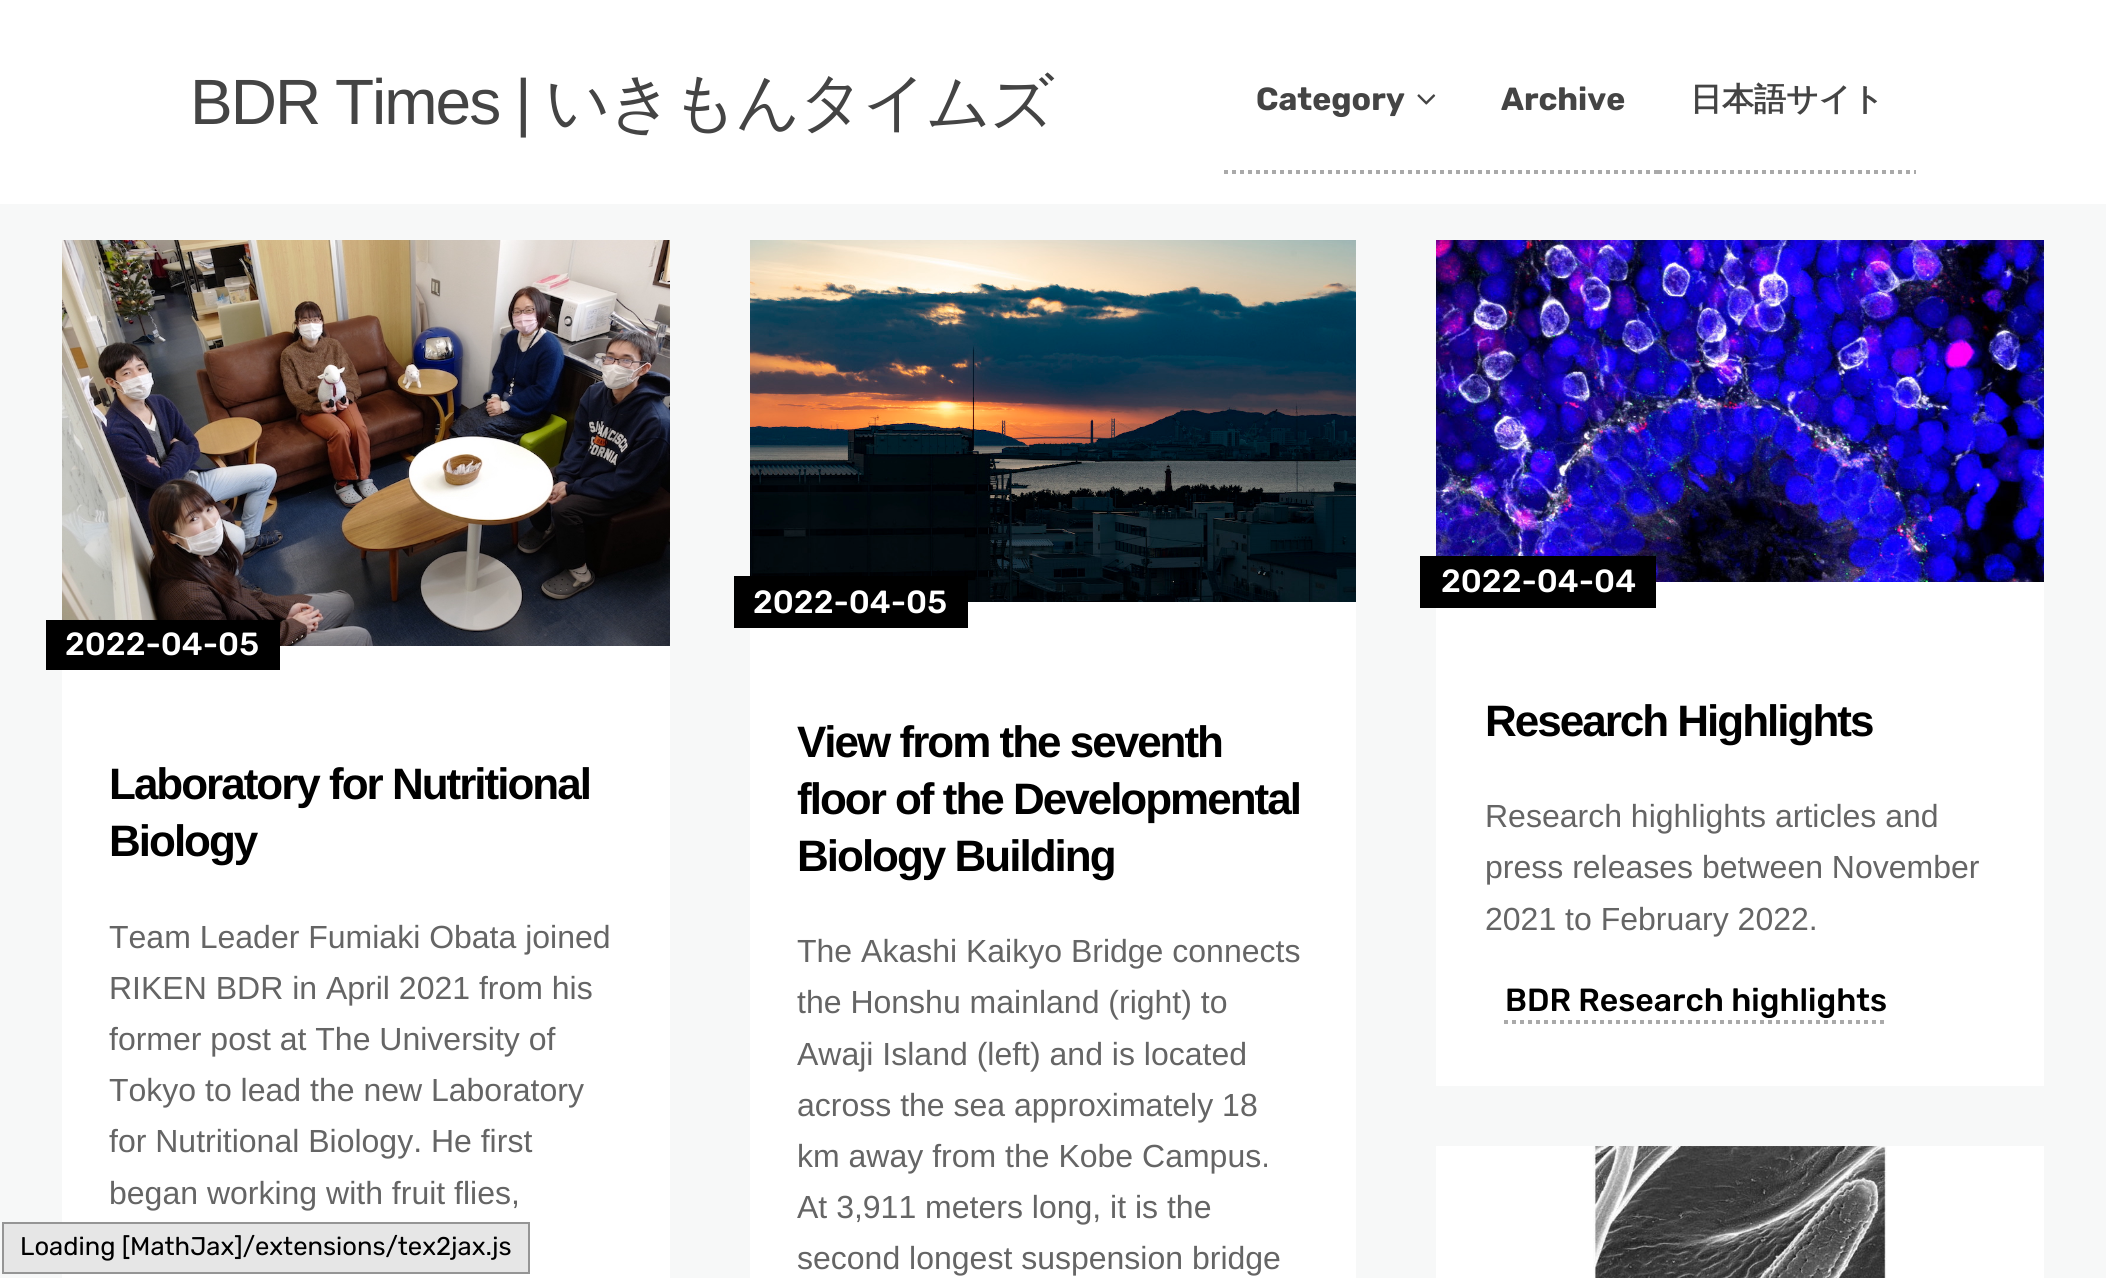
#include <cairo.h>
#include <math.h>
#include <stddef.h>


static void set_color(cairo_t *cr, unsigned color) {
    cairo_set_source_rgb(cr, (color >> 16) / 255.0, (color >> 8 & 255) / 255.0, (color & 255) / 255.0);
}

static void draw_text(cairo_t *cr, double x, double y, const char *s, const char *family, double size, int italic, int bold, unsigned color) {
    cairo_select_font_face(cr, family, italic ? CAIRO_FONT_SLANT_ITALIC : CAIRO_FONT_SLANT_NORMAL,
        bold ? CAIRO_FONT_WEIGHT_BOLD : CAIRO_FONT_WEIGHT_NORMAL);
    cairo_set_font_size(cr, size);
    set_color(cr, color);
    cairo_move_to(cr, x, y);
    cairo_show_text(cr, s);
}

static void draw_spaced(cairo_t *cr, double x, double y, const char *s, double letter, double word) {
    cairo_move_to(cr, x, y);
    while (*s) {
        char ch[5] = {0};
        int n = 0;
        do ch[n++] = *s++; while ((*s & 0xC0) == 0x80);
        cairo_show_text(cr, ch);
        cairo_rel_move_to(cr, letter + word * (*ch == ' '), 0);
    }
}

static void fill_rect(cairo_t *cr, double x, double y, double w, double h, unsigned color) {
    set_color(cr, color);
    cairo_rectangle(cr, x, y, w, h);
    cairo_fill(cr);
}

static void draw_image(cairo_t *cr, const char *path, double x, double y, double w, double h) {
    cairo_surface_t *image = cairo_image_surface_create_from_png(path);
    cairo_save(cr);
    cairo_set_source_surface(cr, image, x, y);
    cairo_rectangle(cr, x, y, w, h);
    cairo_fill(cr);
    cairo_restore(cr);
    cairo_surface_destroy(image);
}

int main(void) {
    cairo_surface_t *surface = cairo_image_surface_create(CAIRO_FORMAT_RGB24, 2106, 1278);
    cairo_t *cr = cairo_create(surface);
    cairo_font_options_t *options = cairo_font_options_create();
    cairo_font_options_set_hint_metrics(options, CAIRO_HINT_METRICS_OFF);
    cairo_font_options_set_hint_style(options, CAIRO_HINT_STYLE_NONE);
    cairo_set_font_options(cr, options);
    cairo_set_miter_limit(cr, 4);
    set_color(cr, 0xF7F8F8);
    cairo_paint(cr);
    fill_rect(cr, 0, 0, 2106, 204, 0xFFFFFF);
    cairo_select_font_face(cr, "Liberation Sans", CAIRO_FONT_SLANT_NORMAL, CAIRO_FONT_WEIGHT_NORMAL);
    cairo_set_font_size(cr, 64);
    set_color(cr, 0x444444);
    draw_spaced(cr, 190, 124, "BDR Times |", -2, 0);
    cairo_select_font_face(cr, "WenQuanYi Zen Hei Medium", CAIRO_FONT_SLANT_NORMAL, CAIRO_FONT_WEIGHT_NORMAL);
    draw_spaced(cr, 545, 124, "いきもんタイムズ", -2, 0);
    cairo_new_path(cr);
    cairo_move_to(cr, 1224, 172);
    cairo_line_to(cr, 1470, 172);
    set_color(cr, 0xAAAAAA);
    cairo_set_line_width(cr, 4);
    cairo_set_dash(cr, (double[]){4, 4}, 2, 0);
    cairo_stroke(cr);
    draw_text(cr, 1256, 110, "Category", "Rubik", 32, 0, 1, 0x444444);
    draw_image(cr, "assets/img1.png", 1417, 94, 19, 11);
    cairo_new_path(cr);
    cairo_move_to(cr, 1470, 172);
    cairo_line_to(cr, 1658, 172);
    set_color(cr, 0xAAAAAA);
    cairo_stroke(cr);
    draw_text(cr, 1501, 110, "Archive", "Rubik", 32, 0, 1, 0x444444);
    cairo_new_path(cr);
    cairo_move_to(cr, 1658, 172);
    cairo_line_to(cr, 1916, 172);
    set_color(cr, 0xAAAAAA);
    cairo_stroke(cr);
    draw_text(cr, 1690, 110, "日本語サイト", "WenQuanYi Zen Hei", 32, 0, 1, 0x444444);
    fill_rect(cr, 62, 646, 608, 632, 0xFFFFFF);
    draw_image(cr, "assets/img2.png", 62, 240, 608, 406);
    fill_rect(cr, 46, 620, 234, 50, 0x000000);
    draw_text(cr, 65, 655, "2022-04-05", "Rubik Medium", 32, 0, 0, 0xFFFFFF);
    cairo_select_font_face(cr, "Liberation Sans", CAIRO_FONT_SLANT_NORMAL, CAIRO_FONT_WEIGHT_BOLD);
    cairo_set_font_size(cr, 44);
    set_color(cr, 0x000000);
    draw_spaced(cr, 109, 799, "Laboratory for Nutritional", -2, 0);
    draw_spaced(cr, 109, 856, "Biology", -2, 0);
    draw_text(cr, 109, 948, "Team Leader Fumiaki Obata joined", "Liberation Sans", 32, 0, 0, 0x656565);
    draw_text(cr, 109, 999, "RIKEN BDR in April 2021 from his", "Liberation Sans", 32, 0, 0, 0x656565);
    draw_text(cr, 109, 1050, "former post at The University of", "Liberation Sans", 32, 0, 0, 0x656565);
    draw_text(cr, 109, 1101, "Tokyo to lead the new Laboratory", "Liberation Sans", 32, 0, 0, 0x656565);
    draw_text(cr, 109, 1152, "for Nutritional Biology. He first", "Liberation Sans", 32, 0, 0, 0x656565);
    draw_text(cr, 109, 1204, "began working with fruit flies,", "Liberation Sans", 32, 0, 0, 0x656565);
    fill_rect(cr, 750, 602, 606, 676, 0xFFFFFF);
    draw_image(cr, "assets/img3.png", 750, 240, 606, 362);
    fill_rect(cr, 734, 576, 234, 52, 0x000000);
    draw_text(cr, 753, 613, "2022-04-05", "Rubik Medium", 32, 0, 0, 0xFFFFFF);
    cairo_select_font_face(cr, "Liberation Sans", CAIRO_FONT_SLANT_NORMAL, CAIRO_FONT_WEIGHT_BOLD);
    cairo_set_font_size(cr, 44);
    set_color(cr, 0x000000);
    draw_spaced(cr, 797, 757, "View from the seventh", -2, 0);
    draw_spaced(cr, 797, 814, "floor of the Developmental", -2, 0);
    draw_spaced(cr, 797, 871, "Biology Building", -2, 0);
    draw_text(cr, 797, 962, "The Akashi Kaikyo Bridge connects", "Liberation Sans", 32, 0, 0, 0x656565);
    draw_text(cr, 797, 1013, "the Honshu mainland (right) to", "Liberation Sans", 32, 0, 0, 0x656565);
    draw_text(cr, 797, 1065, "Awaji Island (left) and is located", "Liberation Sans", 32, 0, 0, 0x656565);
    draw_text(cr, 797, 1116, "across the sea approximately 18", "Liberation Sans", 32, 0, 0, 0x656565);
    draw_text(cr, 797, 1167, "km away from the Kobe Campus.", "Liberation Sans", 32, 0, 0, 0x656565);
    draw_text(cr, 797, 1218, "At 3,911 meters long, it is the", "Liberation Sans", 32, 0, 0, 0x656565);
    draw_text(cr, 797, 1269, "second longest suspension bridge", "Liberation Sans", 32, 0, 0, 0x656565);
    fill_rect(cr, 1436, 582, 608, 504, 0xFFFFFF);
    draw_image(cr, "assets/img4.png", 1436, 240, 608, 342);
    fill_rect(cr, 1420, 556, 236, 52, 0x000000);
    draw_text(cr, 1441, 592, "2022-04-04", "Rubik Medium", 32, 0, 0, 0xFFFFFF);
    cairo_select_font_face(cr, "Liberation Sans", CAIRO_FONT_SLANT_NORMAL, CAIRO_FONT_WEIGHT_BOLD);
    cairo_set_font_size(cr, 44);
    set_color(cr, 0x000000);
    draw_spaced(cr, 1485, 736, "Research Highlights", -2, 0);
    draw_text(cr, 1485, 827, "Research highlights articles and", "Liberation Sans", 32, 0, 0, 0x656565);
    draw_text(cr, 1485, 878, "press releases between November", "Liberation Sans", 32, 0, 0, 0x656565);
    draw_text(cr, 1485, 930, "2021 to February 2022.", "Liberation Sans", 32, 0, 0, 0x656565);
    draw_text(cr, 1505, 1011, "BDR Research highlights", "Rubik Medium", 32, 0, 0, 0x000000);
    cairo_new_path(cr);
    cairo_move_to(cr, 1504, 1022);
    cairo_line_to(cr, 1888, 1022);
    set_color(cr, 0xAAAAAA);
    cairo_stroke(cr);
    fill_rect(cr, 1436, 1146, 608, 132, 0xFFFFFF);
    draw_image(cr, "assets/img5.png", 1593, 1146, 294, 132);
    set_color(cr, 0xE6E6E6);
    cairo_rectangle(cr, 3, 1223, 526, 50);
    cairo_fill_preserve(cr);
    set_color(cr, 0x959595);
    cairo_set_line_width(cr, 2);
    cairo_set_dash(cr, NULL, 0, 0);
    cairo_stroke(cr);
    draw_text(cr, 20, 1255, "Loading [MathJax]/extensions/tex2jax.js", "Rubik", 25.6, 0, 0, 0x000000);
    cairo_surface_write_to_png(surface, "output.png");
    cairo_font_options_destroy(options);
    cairo_destroy(cr);
    cairo_surface_destroy(surface);
    return 0;
}
